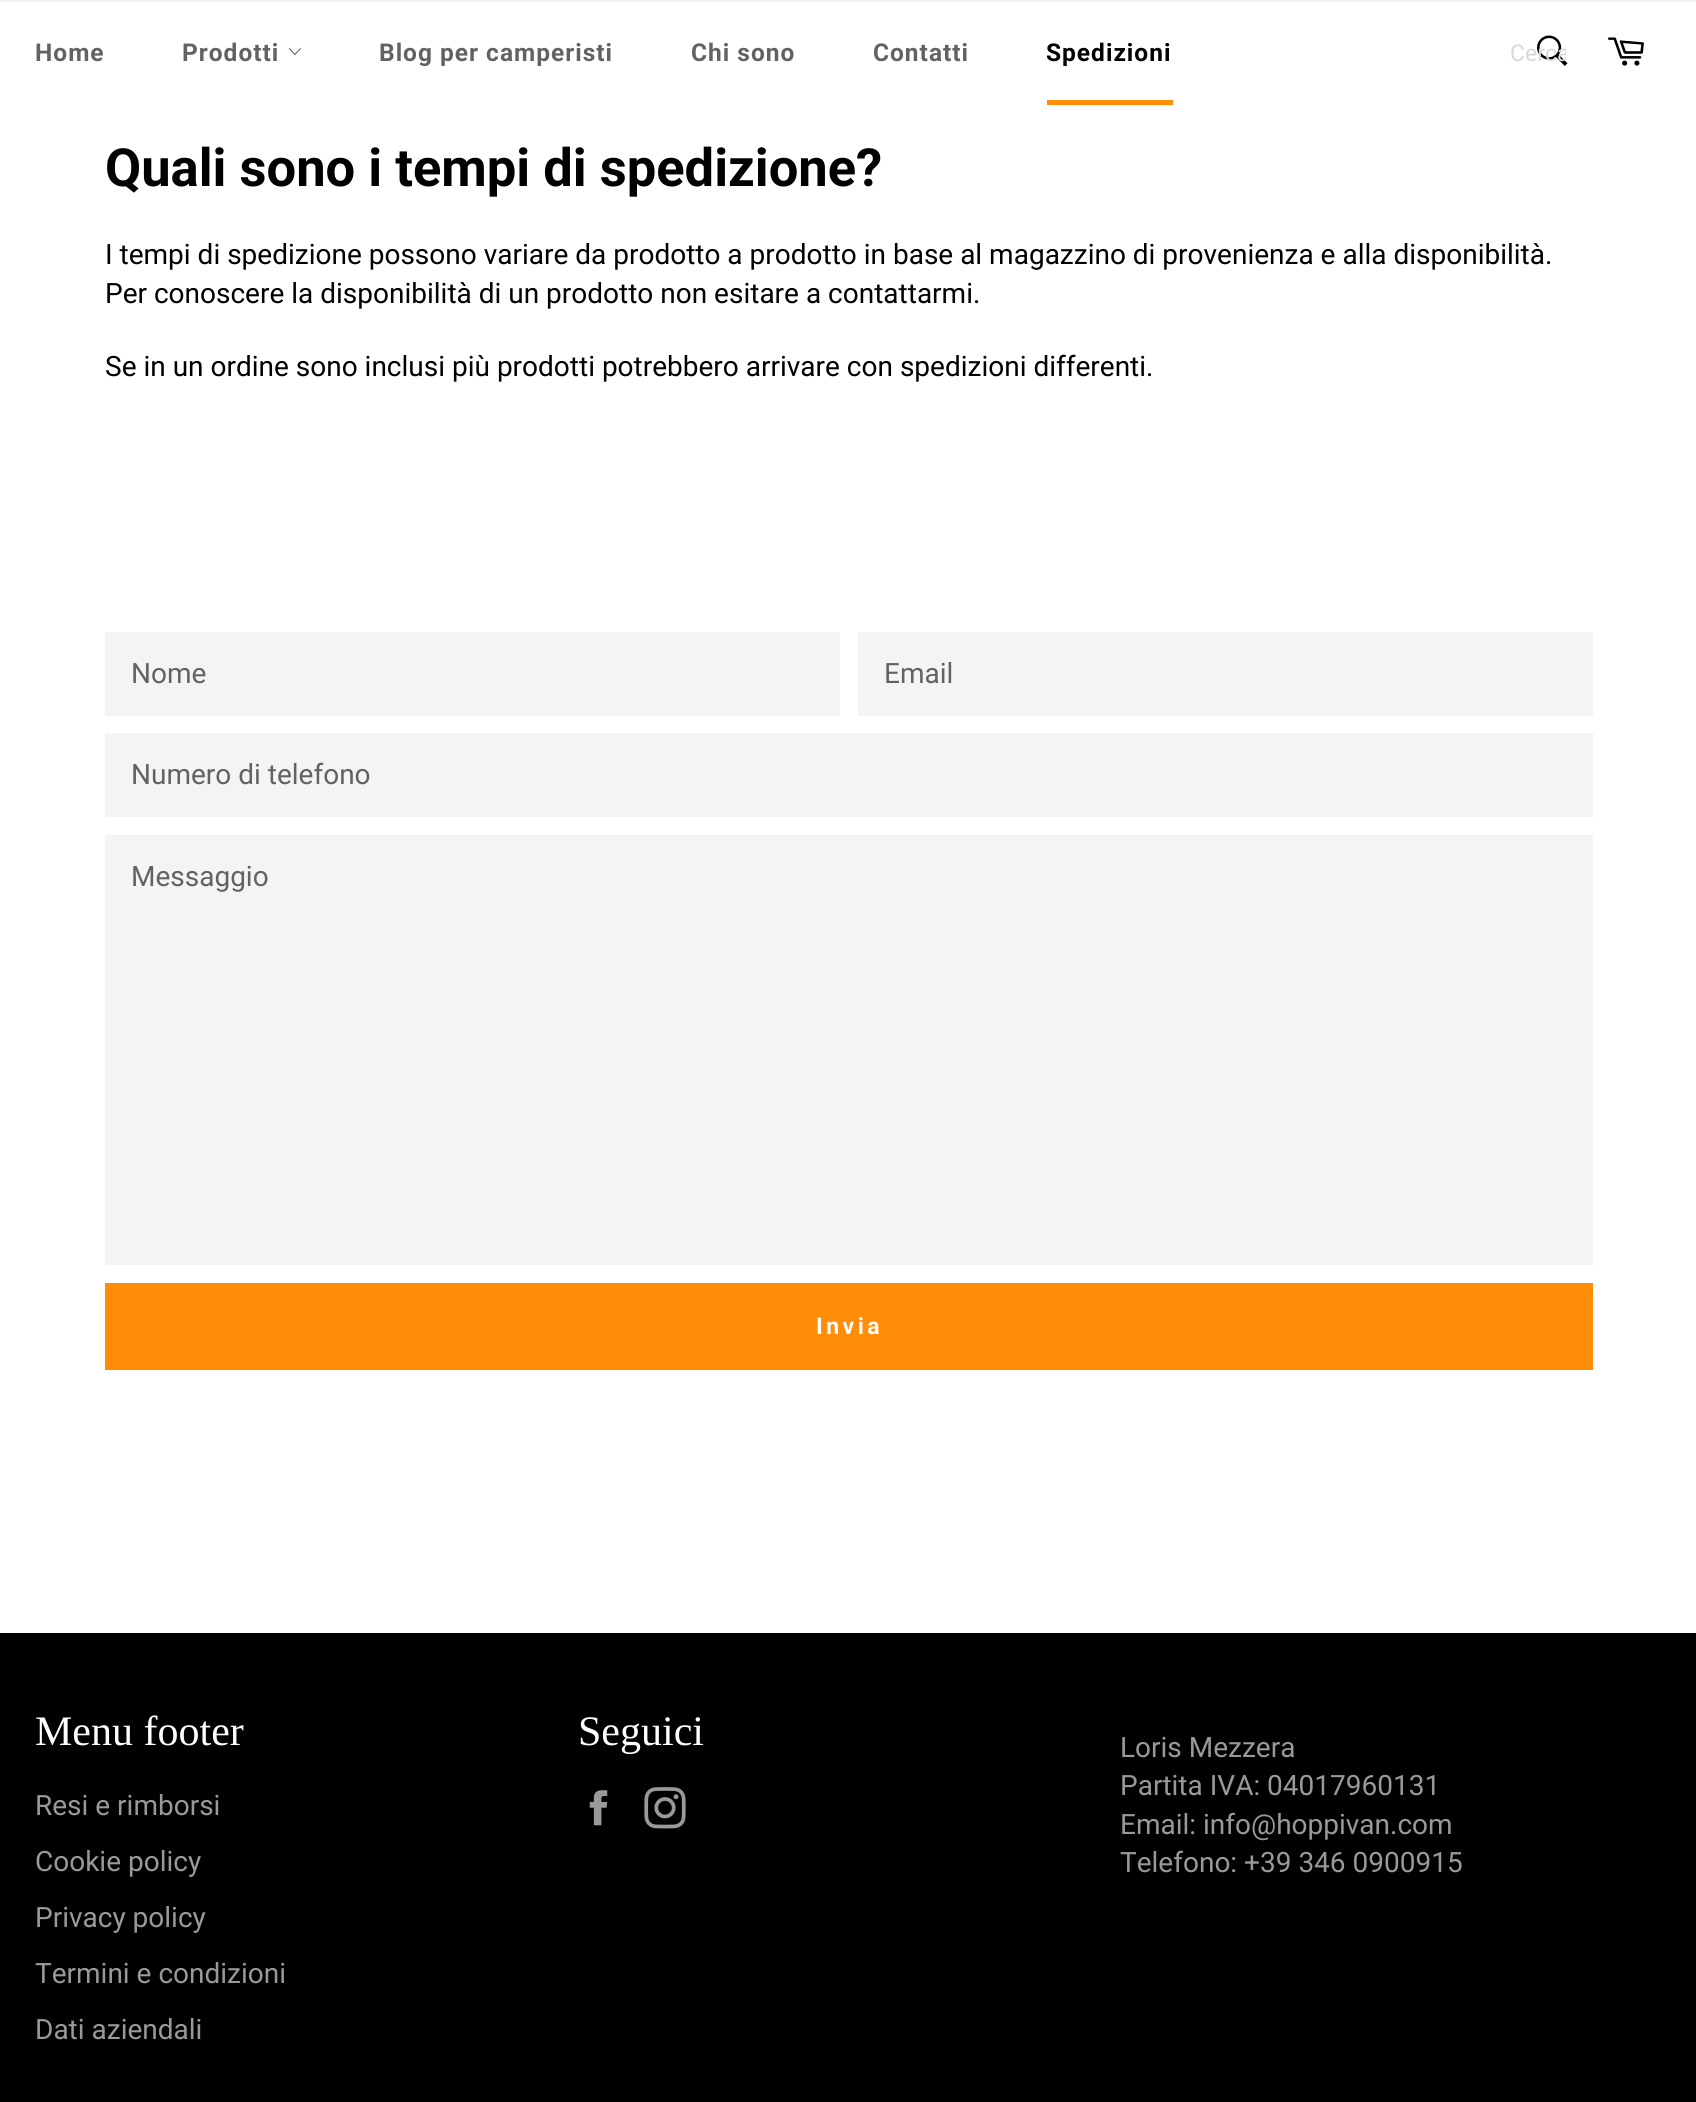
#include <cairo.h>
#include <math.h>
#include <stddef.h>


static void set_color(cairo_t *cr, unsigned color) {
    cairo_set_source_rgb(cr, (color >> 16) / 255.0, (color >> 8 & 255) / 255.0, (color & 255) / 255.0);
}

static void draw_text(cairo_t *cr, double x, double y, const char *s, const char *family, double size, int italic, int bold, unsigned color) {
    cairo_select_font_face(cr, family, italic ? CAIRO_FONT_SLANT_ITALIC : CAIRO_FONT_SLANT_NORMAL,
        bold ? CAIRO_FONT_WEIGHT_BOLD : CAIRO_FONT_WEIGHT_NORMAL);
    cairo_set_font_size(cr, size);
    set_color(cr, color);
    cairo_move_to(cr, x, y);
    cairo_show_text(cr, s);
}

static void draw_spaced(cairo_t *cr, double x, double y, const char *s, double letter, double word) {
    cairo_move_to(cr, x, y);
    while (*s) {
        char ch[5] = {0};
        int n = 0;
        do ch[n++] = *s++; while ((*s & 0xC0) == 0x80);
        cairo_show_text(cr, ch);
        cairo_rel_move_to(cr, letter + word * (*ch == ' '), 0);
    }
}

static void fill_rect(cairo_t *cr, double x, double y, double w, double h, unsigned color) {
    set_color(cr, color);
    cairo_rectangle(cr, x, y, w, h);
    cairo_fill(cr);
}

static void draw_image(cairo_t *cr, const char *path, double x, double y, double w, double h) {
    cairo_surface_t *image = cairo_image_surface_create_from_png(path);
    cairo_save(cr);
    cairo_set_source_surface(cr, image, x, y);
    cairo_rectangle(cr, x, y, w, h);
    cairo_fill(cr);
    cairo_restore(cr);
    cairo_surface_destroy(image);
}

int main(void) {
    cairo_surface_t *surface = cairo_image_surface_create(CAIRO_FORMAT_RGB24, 1696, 2102);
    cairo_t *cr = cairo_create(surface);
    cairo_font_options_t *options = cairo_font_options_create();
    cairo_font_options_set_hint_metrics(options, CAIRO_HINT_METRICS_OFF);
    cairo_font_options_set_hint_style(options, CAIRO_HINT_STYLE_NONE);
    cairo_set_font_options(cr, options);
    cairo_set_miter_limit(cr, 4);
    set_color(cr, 0xFFFFFF);
    cairo_paint(cr);
    fill_rect(cr, 0, 0, 1696, 2, 0xF2F2F2);
    cairo_select_font_face(cr, "Roboto", CAIRO_FONT_SLANT_NORMAL, CAIRO_FONT_WEIGHT_BOLD);
    cairo_set_font_size(cr, 24.5);
    set_color(cr, 0x626262);
    draw_spaced(cr, 35, 61, "Home", 1, 0);
    draw_spaced(cr, 182, 61, "Prodotti", 1, 0);
    draw_image(cr, "assets/img1.png", 288, 48, 13, 8);
    draw_spaced(cr, 379, 61, "Blog per camperisti", 1, 0);
    draw_spaced(cr, 691, 61, "Chi sono", 1, 0);
    draw_spaced(cr, 873, 61, "Contatti", 1, 0);
    set_color(cr, 0x000000);
    draw_spaced(cr, 1046, 61, "Spedizioni", 1, 0);
    fill_rect(cr, 1047, 100, 126, 5, 0xFF8D08);
    draw_image(cr, "assets/img2.png", 1537, 35, 31, 31);
    cairo_save(cr);
    cairo_rectangle(cr, 1510, 40, 56, 27);
    cairo_clip(cr);
    draw_text(cr, 1510, 61, "Cerca", "Roboto", 23, 0, 0, 0xD8D8D8);
    cairo_restore(cr);
    draw_image(cr, "assets/img3.png", 1607, 37, 37, 29);
    draw_text(cr, 105, 186, "Quali sono i tempi di spedizione?", "Roboto", 52.5, 0, 1, 0x000000);
    draw_text(cr, 105, 264, "I tempi di spedizione possono variare da prodotto a prodotto in base al magazzino di provenienza e alla disponibilità.", "Roboto", 28, 0, 0, 0x000000);
    draw_text(cr, 105, 303, "Per conoscere la disponibilità di un prodotto non esitare a contattarmi.", "Roboto", 28, 0, 0, 0x000000);
    draw_text(cr, 105, 376, "Se in un ordine sono inclusi più prodotti potrebbero arrivare con spedizioni differenti.", "Roboto", 28, 0, 0, 0x000000);
    fill_rect(cr, 105, 632, 735, 84, 0xF4F4F4);
    draw_text(cr, 131, 683, "Nome", "Roboto", 28, 0, 0, 0x626262);
    fill_rect(cr, 858, 632, 735, 84, 0xF4F4F4);
    draw_text(cr, 884, 683, "Email", "Roboto", 28, 0, 0, 0x626262);
    fill_rect(cr, 105, 733, 1488, 84, 0xF4F4F4);
    draw_text(cr, 131, 784, "Numero di telefono", "Roboto", 28, 0, 0, 0x626262);
    fill_rect(cr, 105, 835, 1488, 430, 0xF4F4F4);
    draw_text(cr, 131, 886, "Messaggio", "Roboto", 28, 0, 0, 0x626262);
    fill_rect(cr, 105, 1283, 1488, 87, 0xFF8D08);
    cairo_select_font_face(cr, "Roboto", CAIRO_FONT_SLANT_NORMAL, CAIRO_FONT_WEIGHT_BOLD);
    cairo_set_font_size(cr, 23);
    set_color(cr, 0xFFFFFF);
    draw_spaced(cr, 816, 1334, "Invia", 3.5, 0);
    fill_rect(cr, 0, 1633, 1696, 469, 0x000000);
    draw_text(cr, 35, 1745, "Menu footer", "Liberation Serif", 42, 0, 0, 0xFFFFFF);
    draw_text(cr, 35, 1815, "Resi e rimborsi", "Roboto", 28, 0, 0, 0x999999);
    draw_text(cr, 35, 1871, "Cookie policy", "Roboto", 28, 0, 0, 0x999999);
    draw_text(cr, 35, 1927, "Privacy policy", "Roboto", 28, 0, 0, 0x999999);
    draw_text(cr, 35, 1983, "Termini e condizioni", "Roboto", 28, 0, 0, 0x999999);
    draw_text(cr, 35, 2039, "Dati aziendali", "Roboto", 28, 0, 0, 0x999999);
    draw_text(cr, 578, 1745, "Seguici", "Liberation Serif", 42, 0, 0, 0xFFFFFF);
    draw_image(cr, "assets/img4.png", 589, 1790, 19, 36);
    draw_image(cr, "assets/img5.png", 644, 1787, 42, 42);
    draw_text(cr, 1120, 1757, "Loris Mezzera", "Roboto", 28, 0, 0, 0x999999);
    draw_text(cr, 1120, 1795, "Partita IVA: 04017960131", "Roboto", 28, 0, 0, 0x999999);
    draw_text(cr, 1120, 1834, "Email: info@hoppivan.com", "Roboto", 28, 0, 0, 0x999999);
    draw_text(cr, 1120, 1872, "Telefono: +39 346 0900915", "Roboto", 28, 0, 0, 0x999999);
    cairo_surface_write_to_png(surface, "output.png");
    cairo_font_options_destroy(options);
    cairo_destroy(cr);
    cairo_surface_destroy(surface);
    return 0;
}
